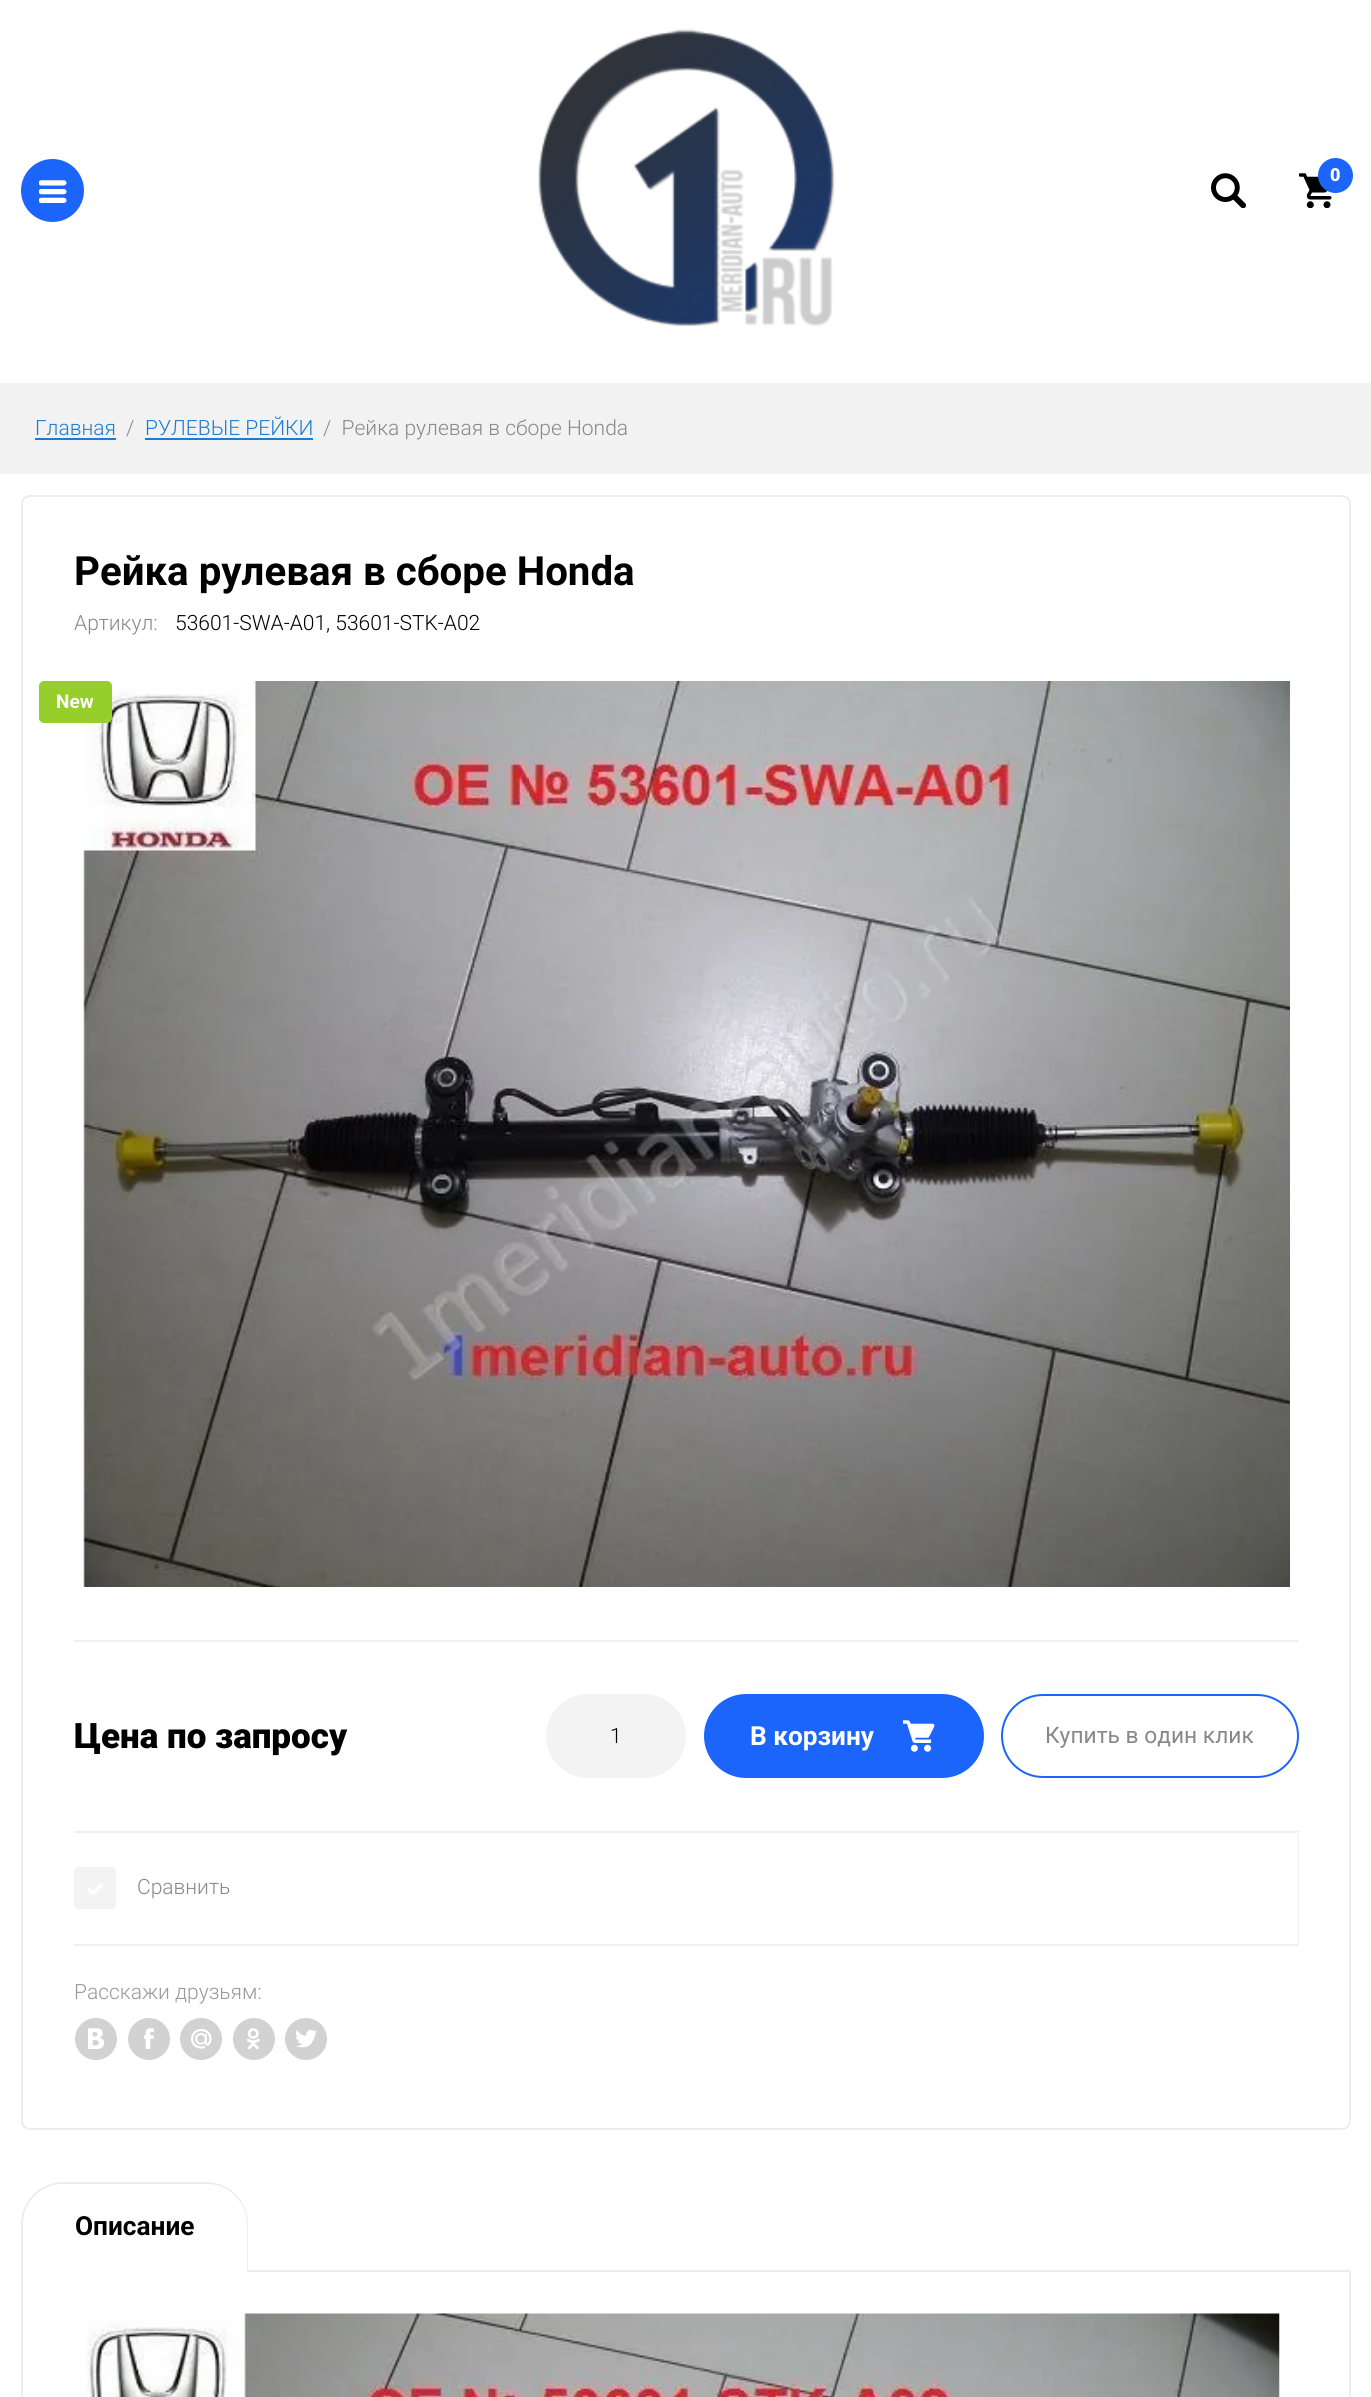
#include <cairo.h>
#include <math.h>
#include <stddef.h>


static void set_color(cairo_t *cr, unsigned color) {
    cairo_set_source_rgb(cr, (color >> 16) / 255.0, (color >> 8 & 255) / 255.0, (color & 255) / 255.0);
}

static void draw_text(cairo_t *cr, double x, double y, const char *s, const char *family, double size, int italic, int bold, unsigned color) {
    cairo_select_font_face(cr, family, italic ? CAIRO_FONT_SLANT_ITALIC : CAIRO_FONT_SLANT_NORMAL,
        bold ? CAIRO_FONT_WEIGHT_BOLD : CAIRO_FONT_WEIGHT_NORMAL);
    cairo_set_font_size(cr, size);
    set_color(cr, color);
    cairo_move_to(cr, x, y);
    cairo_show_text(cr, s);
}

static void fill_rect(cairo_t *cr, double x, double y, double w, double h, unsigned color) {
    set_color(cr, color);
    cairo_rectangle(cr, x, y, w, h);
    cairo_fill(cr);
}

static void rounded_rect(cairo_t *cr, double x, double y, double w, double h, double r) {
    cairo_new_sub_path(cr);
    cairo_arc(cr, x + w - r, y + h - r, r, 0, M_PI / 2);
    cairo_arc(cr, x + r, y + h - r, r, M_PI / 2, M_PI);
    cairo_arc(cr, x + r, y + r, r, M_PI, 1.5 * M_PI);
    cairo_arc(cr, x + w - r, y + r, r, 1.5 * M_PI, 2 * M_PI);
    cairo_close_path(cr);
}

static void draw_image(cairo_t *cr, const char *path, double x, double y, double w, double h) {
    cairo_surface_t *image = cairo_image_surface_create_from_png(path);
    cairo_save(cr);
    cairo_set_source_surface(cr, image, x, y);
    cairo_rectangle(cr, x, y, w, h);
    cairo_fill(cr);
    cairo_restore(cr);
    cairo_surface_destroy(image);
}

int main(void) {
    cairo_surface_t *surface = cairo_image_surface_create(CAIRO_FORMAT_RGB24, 1371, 2397);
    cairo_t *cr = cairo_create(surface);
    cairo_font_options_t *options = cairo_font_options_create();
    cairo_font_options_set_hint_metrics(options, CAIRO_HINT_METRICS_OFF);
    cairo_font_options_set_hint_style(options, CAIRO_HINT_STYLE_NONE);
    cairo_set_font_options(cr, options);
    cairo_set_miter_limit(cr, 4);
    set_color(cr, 0xFFFFFF);
    cairo_paint(cr);
    set_color(cr, 0x1C65FB);
    cairo_arc(cr, 52.5, 190.5, 31.5, 0, 2 * M_PI);
    cairo_fill(cr);
    draw_image(cr, "assets/img1.png", 39, 180, 28, 23);
    draw_image(cr, "assets/img2.png", 538, 29, 297, 297);
    draw_image(cr, "assets/img3.png", 1211, 173, 35, 35);
    draw_image(cr, "assets/img4.png", 1299, 173, 33, 35);
    cairo_arc(cr, 1335.5, 175.5, 17.5, 0, 2 * M_PI);
    cairo_fill(cr);
    draw_text(cr, 1330, 181, "0", "Roboto Black", 18, 0, 0, 0xFFFFFF);
    fill_rect(cr, 0, 383, 1371, 91, 0xF2F2F2);
    draw_text(cr, 35, 435, "Главная", "Roboto Light", 21, 0, 0, 0x1D7BD3);
    fill_rect(cr, 35, 438, 81, 2, 0x1D7BD3);
    draw_text(cr, 126, 435, "/", "Roboto Light", 21, 0, 0, 0x888888);
    draw_text(cr, 145, 435, "РУЛЕВЫЕ РЕЙКИ", "Roboto Light", 21, 0, 0, 0x1D7BD3);
    fill_rect(cr, 145, 438, 168, 2, 0x1D7BD3);
    draw_text(cr, 323, 435, "/  Рейка рулевая в сборе Honda", "Roboto Light", 21, 0, 0, 0x888888);
    rounded_rect(cr, 22, 496, 1328, 1633, 8);
    set_color(cr, 0xEDEDED);
    cairo_stroke(cr);
    draw_text(cr, 74, 585, "Рейка рулевая в сборе Honda", "Roboto", 40.25, 0, 1, 0x000000);
    draw_text(cr, 74, 630, "Артикул:", "Roboto Light", 21, 0, 0, 0x888888);
    draw_text(cr, 175, 630, "53601-SWA-A01, 53601-STK-A02", "Roboto Light", 21, 0, 0, 0x000000);
    draw_image(cr, "assets/img5.png", 83, 681, 1207, 906);
    set_color(cr, 0x96CE2B);
    rounded_rect(cr, 39, 681, 73, 42, 5);
    cairo_fill(cr);
    draw_text(cr, 56, 708, "New", "Roboto", 19, 0, 1, 0xFFFFFF);
    fill_rect(cr, 74, 1640, 1225, 2, 0xF0F0F0);
    fill_rect(cr, 74, 1831, 1225, 2, 0xF0F0F0);
    draw_text(cr, 74, 1748, "Цена по запросу", "Roboto Black", 35, 0, 0, 0x000000);
    set_color(cr, 0xF3F3F3);
    rounded_rect(cr, 546, 1694, 140, 84, 42);
    cairo_fill(cr);
    draw_text(cr, 610, 1743, "1", "Roboto Light", 21, 0, 0, 0x000000);
    set_color(cr, 0x1C65FB);
    rounded_rect(cr, 704, 1694, 280, 84, 42);
    cairo_fill(cr);
    draw_text(cr, 750, 1745, "В корзину", "Roboto", 26.25, 0, 1, 0xFFFFFF);
    draw_image(cr, "assets/img6.png", 903, 1720, 32, 32);
    rounded_rect(cr, 1002, 1695, 296, 82, 41);
    set_color(cr, 0x1C65FB);
    cairo_stroke(cr);
    draw_text(cr, 1045, 1743, "Купить в один клик", "Roboto", 22.75, 0, 0, 0x888888);
    set_color(cr, 0xF0F0F0);
    cairo_new_path(cr);
    cairo_move_to(cr, 74, 1944);
    cairo_line_to(cr, 74, 1946);
    cairo_line_to(cr, 1299, 1946);
    cairo_line_to(cr, 1299, 1834);
    cairo_line_to(cr, 1298, 1834);
    cairo_line_to(cr, 1298, 1944);
    cairo_close_path(cr);
    cairo_fill(cr);
    set_color(cr, 0xF3F3F3);
    rounded_rect(cr, 74, 1867, 42, 42, 4);
    cairo_fill(cr);
    draw_image(cr, "assets/img7.png", 88, 1883, 15, 12);
    draw_text(cr, 137, 1894, "Сравнить", "Roboto Light", 21, 0, 0, 0x888888);
    draw_text(cr, 74, 1999, "Расскажи друзьям:", "Roboto Light", 21, 0, 0, 0x999999);
    set_color(cr, 0xD2D2D2);
    cairo_new_path(cr);
    cairo_arc(cr, 96, 2039, 21, 0, 2 * M_PI);
    cairo_fill(cr);
    draw_image(cr, "assets/img8.png", 88, 2028, 17, 21);
    cairo_arc(cr, 149, 2039, 21, 0, 2 * M_PI);
    cairo_fill(cr);
    draw_image(cr, "assets/img9.png", 144, 2028, 10, 21);
    cairo_arc(cr, 201, 2039, 21, 0, 2 * M_PI);
    cairo_fill(cr);
    draw_image(cr, "assets/img10.png", 191, 2029, 21, 20);
    cairo_arc(cr, 254, 2039, 21, 0, 2 * M_PI);
    cairo_fill(cr);
    draw_image(cr, "assets/img11.png", 247, 2028, 13, 21);
    cairo_arc(cr, 306, 2039, 21, 0, 2 * M_PI);
    cairo_fill(cr);
    draw_image(cr, "assets/img12.png", 296, 2030, 21, 18);
    set_color(cr, 0xEDEDED);
    cairo_set_fill_rule(cr, CAIRO_FILL_RULE_EVEN_ODD);
    cairo_new_path(cr);
    cairo_move_to(cr, 63, 2182);
    cairo_line_to(cr, 206, 2182);
    cairo_curve_to(cr, 230, 2182, 248, 2201, 248, 2224);
    cairo_line_to(cr, 248, 2270);
    cairo_line_to(cr, 21, 2270);
    cairo_line_to(cr, 21, 2224);
    cairo_curve_to(cr, 21, 2201, 40, 2182, 63, 2182);
    cairo_close_path(cr);
    cairo_move_to(cr, 63, 2184);
    cairo_line_to(cr, 206, 2184);
    cairo_curve_to(cr, 229, 2184, 247, 2202, 247, 2224);
    cairo_line_to(cr, 247, 2270);
    cairo_line_to(cr, 23, 2270);
    cairo_line_to(cr, 23, 2224);
    cairo_curve_to(cr, 23, 2202, 41, 2184, 63, 2184);
    cairo_close_path(cr);
    cairo_fill(cr);
    draw_text(cr, 75, 2235, "Описание", "Roboto", 26.25, 0, 1, 0x000000);
    cairo_rectangle(cr, 22, 2271, 1328, 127);
    set_color(cr, 0xEDEDED);
    cairo_stroke(cr);
    fill_rect(cr, 23, 2270, 224, 2, 0xFFFFFF);
    draw_image(cr, "assets/img13.png", 87, 2313, 1193, 84);
    cairo_surface_write_to_png(surface, "output.png");
    cairo_font_options_destroy(options);
    cairo_destroy(cr);
    cairo_surface_destroy(surface);
    return 0;
}
